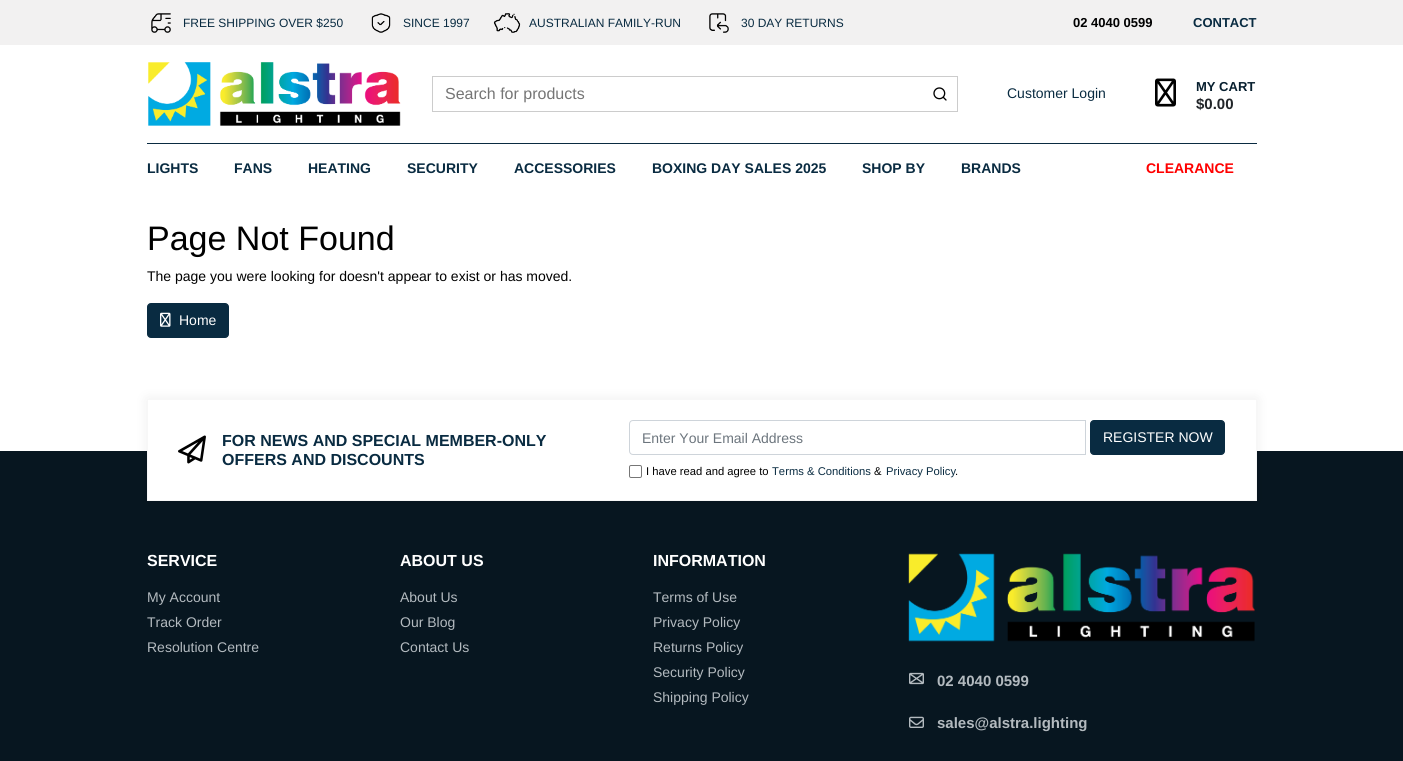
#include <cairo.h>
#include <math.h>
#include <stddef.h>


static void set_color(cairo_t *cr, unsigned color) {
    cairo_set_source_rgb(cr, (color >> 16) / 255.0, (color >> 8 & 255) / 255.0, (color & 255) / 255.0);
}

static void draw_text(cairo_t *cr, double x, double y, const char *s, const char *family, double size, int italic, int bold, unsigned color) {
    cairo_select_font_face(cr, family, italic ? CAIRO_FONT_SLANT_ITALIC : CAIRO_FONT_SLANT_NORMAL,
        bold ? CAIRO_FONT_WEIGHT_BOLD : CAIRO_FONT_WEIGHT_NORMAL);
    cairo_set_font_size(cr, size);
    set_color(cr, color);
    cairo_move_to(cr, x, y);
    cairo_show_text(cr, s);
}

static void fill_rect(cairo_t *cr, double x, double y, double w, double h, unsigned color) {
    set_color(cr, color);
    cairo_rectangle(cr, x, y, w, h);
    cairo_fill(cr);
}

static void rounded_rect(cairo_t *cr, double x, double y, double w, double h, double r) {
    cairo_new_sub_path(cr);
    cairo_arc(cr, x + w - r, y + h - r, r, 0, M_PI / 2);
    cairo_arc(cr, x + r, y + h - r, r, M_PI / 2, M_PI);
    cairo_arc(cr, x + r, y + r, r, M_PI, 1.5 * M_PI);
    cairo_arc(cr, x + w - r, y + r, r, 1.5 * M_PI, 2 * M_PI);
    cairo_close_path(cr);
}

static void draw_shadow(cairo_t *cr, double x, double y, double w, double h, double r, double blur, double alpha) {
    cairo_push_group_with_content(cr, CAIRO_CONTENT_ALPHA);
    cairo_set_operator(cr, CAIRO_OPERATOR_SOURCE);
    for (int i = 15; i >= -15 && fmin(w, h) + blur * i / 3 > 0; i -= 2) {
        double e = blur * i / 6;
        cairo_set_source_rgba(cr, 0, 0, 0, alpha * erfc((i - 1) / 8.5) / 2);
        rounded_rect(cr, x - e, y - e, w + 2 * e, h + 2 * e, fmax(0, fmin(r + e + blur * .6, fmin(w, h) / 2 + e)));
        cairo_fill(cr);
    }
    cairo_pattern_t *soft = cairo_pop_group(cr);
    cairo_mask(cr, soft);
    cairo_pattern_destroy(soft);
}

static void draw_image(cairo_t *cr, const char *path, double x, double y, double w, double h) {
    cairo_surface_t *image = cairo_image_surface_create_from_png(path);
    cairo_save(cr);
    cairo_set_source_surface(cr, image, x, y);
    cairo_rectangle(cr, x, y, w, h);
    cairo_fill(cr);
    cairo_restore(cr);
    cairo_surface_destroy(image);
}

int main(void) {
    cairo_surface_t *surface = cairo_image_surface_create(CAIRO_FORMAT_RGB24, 1403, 761);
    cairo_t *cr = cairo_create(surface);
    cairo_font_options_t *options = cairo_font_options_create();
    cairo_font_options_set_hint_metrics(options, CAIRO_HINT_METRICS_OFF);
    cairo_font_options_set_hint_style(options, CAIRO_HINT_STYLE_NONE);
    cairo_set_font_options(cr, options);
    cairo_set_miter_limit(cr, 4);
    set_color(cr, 0xFFFFFF);
    cairo_paint(cr);
    fill_rect(cr, 0, 0, 1403, 45, 0xF2F1F1);
    draw_image(cr, "assets/img1.png", 151, 13, 20, 20);
    draw_text(cr, 183, 27, "FREE SHIPPING OVER $250", "Liberation Sans", 12, 0, 0, 0x092B41);
    draw_image(cr, "assets/img2.png", 371, 13, 20, 20);
    draw_text(cr, 403, 27, "SINCE 1997", "Liberation Sans", 12, 0, 0, 0x092B41);
    draw_image(cr, "assets/img3.png", 493, 13, 28, 20);
    draw_text(cr, 529, 27, "AUSTRALIAN FAMILY-RUN", "Liberation Sans", 12, 0, 0, 0x092B41);
    draw_image(cr, "assets/img4.png", 709, 13, 20, 20);
    draw_text(cr, 741, 27, "30 DAY RETURNS", "Liberation Sans", 12, 0, 0, 0x092B41);
    draw_text(cr, 1073, 27, "02 4040 0599", "Liberation Sans", 13, 0, 1, 0x000000);
    draw_text(cr, 1193, 27, "CONTACT", "Liberation Sans", 13, 0, 1, 0x092B41);
    draw_image(cr, "assets/img5.png", 148, 62, 253, 64);
    cairo_rectangle(cr, 432.5, 76.5, 525, 35);
    set_color(cr, 0xCCCCCC);
    cairo_set_line_width(cr, 1);
    cairo_stroke(cr);
    draw_text(cr, 445, 99, "Search for products", "Liberation Sans", 16, 0, 0, 0x757575);
    draw_image(cr, "assets/img6.png", 933, 87, 14, 14);
    draw_text(cr, 1007, 98, "Customer Login", "Liberation Sans", 14, 0, 0, 0x092B41);
    draw_image(cr, "assets/img7.png", 1155, 78, 21, 29);
    draw_text(cr, 1196, 91, "MY CART", "Liberation Sans", 13, 0, 1, 0x071F2F);
    draw_text(cr, 1196, 109, "$0.00", "Liberation Sans", 15, 0, 1, 0x212529);
    fill_rect(cr, 147, 143, 1110, 1, 0x0A2B41);
    draw_text(cr, 147, 173, "LIGHTS", "Liberation Sans", 14, 0, 1, 0x092B41);
    draw_text(cr, 234, 173, "FANS", "Liberation Sans", 14, 0, 1, 0x092B41);
    draw_text(cr, 308, 173, "HEATING", "Liberation Sans", 14, 0, 1, 0x092B41);
    draw_text(cr, 407, 173, "SECURITY", "Liberation Sans", 14, 0, 1, 0x092B41);
    draw_text(cr, 514, 173, "ACCESSORIES", "Liberation Sans", 14, 0, 1, 0x092B41);
    draw_text(cr, 652, 173, "BOXING DAY SALES 2025", "Liberation Sans", 14, 0, 1, 0x092B41);
    draw_text(cr, 862, 173, "SHOP BY", "Liberation Sans", 14, 0, 1, 0x092B41);
    draw_text(cr, 961, 173, "BRANDS", "Liberation Sans", 14, 0, 1, 0x092B41);
    draw_text(cr, 1146, 173, "CLEARANCE", "Liberation Sans", 14, 0, 1, 0xFF0000);
    draw_text(cr, 147, 250, "Page Not Found", "Liberation Sans", 34, 0, 0, 0x000000);
    draw_text(cr, 147, 281, "The page you were looking for doesn't appear to exist or has moved.", "Liberation Sans", 14, 0, 0, 0x000000);
    set_color(cr, 0x092B41);
    rounded_rect(cr, 147.5, 303.5, 81, 34, 3.5);
    cairo_fill_preserve(cr);
    cairo_stroke(cr);
    draw_image(cr, "assets/img8.png", 160, 312, 11, 15);
    draw_text(cr, 179, 325, "Home", "Liberation Sans", 14, 0, 0, 0xFFFFFF);
    fill_rect(cr, 0, 451, 1403, 310, 0x071620);
    set_color(cr, 0x000000);
    draw_shadow(cr, 147, 399, 1110, 102, 0, 7, 0.07);
    set_color(cr, 0xFFFFFF);
    cairo_rectangle(cr, 147.5, 399.5, 1109, 101);
    cairo_fill_preserve(cr);
    set_color(cr, 0xF7F7F7);
    cairo_stroke(cr);
    draw_image(cr, "assets/img9.png", 178, 435, 28, 29);
    draw_text(cr, 222, 446, "FOR NEWS AND SPECIAL MEMBER-ONLY", "Liberation Sans", 16, 0, 1, 0x092B41);
    draw_text(cr, 222, 465, "OFFERS AND DISCOUNTS", "Liberation Sans", 16, 0, 1, 0x092B41);
    cairo_new_path(cr);
    cairo_move_to(cr, 633, 420.5);
    cairo_line_to(cr, 1085.5, 420.5);
    cairo_line_to(cr, 1085.5, 454.5);
    cairo_line_to(cr, 633, 454.5);
    cairo_curve_to(cr, 631, 454.5, 629.5, 453, 629.5, 451);
    cairo_line_to(cr, 629.5, 424);
    cairo_curve_to(cr, 629.5, 422, 631, 420.5, 633, 420.5);
    cairo_close_path(cr);
    set_color(cr, 0xCED4DA);
    cairo_stroke(cr);
    draw_text(cr, 642, 443, "Enter Your Email Address", "Liberation Sans", 14, 0, 0, 0x6C757D);
    set_color(cr, 0x092B41);
    rounded_rect(cr, 1090.5, 420.5, 134, 34, 3.5);
    cairo_fill_preserve(cr);
    cairo_stroke(cr);
    draw_text(cr, 1103, 442, "REGISTER NOW", "Liberation Sans", 14, 0, 0, 0xFFFFFF);
    rounded_rect(cr, 629.5, 465.5, 12, 12, 1.5);
    set_color(cr, 0x767676);
    cairo_stroke(cr);
    draw_text(cr, 646, 475, "I have read and agree to", "Liberation Sans", 11.25, 0, 0, 0x000000);
    draw_text(cr, 772, 475, "Terms & Conditions", "Liberation Sans", 11.25, 0, 0, 0x092B41);
    draw_text(cr, 874, 475, "&", "Liberation Sans", 11.25, 0, 0, 0x000000);
    draw_text(cr, 886, 475, "Privacy Policy", "Liberation Sans", 11.25, 0, 0, 0x092B41);
    draw_text(cr, 955, 475, ".", "Liberation Sans", 11.25, 0, 0, 0x000000);
    draw_text(cr, 147, 566, "SERVICE", "Liberation Sans", 16, 0, 1, 0xFFFFFF);
    draw_text(cr, 147, 602, "My Account", "Liberation Sans", 14, 0, 0, 0xB3BABF);
    draw_text(cr, 147, 627, "Track Order", "Liberation Sans", 14, 0, 0, 0xB3BABF);
    draw_text(cr, 147, 652, "Resolution Centre", "Liberation Sans", 14, 0, 0, 0xB3BABF);
    draw_text(cr, 400, 566, "ABOUT US", "Liberation Sans", 16, 0, 1, 0xFFFFFF);
    draw_text(cr, 400, 602, "About Us", "Liberation Sans", 14, 0, 0, 0xB3BABF);
    draw_text(cr, 400, 627, "Our Blog", "Liberation Sans", 14, 0, 0, 0xB3BABF);
    draw_text(cr, 400, 652, "Contact Us", "Liberation Sans", 14, 0, 0, 0xB3BABF);
    draw_text(cr, 653, 566, "INFORMATION", "Liberation Sans", 16, 0, 1, 0xFFFFFF);
    draw_text(cr, 653, 602, "Terms of Use", "Liberation Sans", 14, 0, 0, 0xB3BABF);
    draw_text(cr, 653, 627, "Privacy Policy", "Liberation Sans", 14, 0, 0, 0xB3BABF);
    draw_text(cr, 653, 652, "Returns Policy", "Liberation Sans", 14, 0, 0, 0xB3BABF);
    draw_text(cr, 653, 677, "Security Policy", "Liberation Sans", 14, 0, 0, 0xB3BABF);
    draw_text(cr, 653, 702, "Shipping Policy", "Liberation Sans", 14, 0, 0, 0xB3BABF);
    draw_image(cr, "assets/img10.png", 908, 553, 347, 89);
    draw_image(cr, "assets/img11.png", 909, 672, 15, 13);
    draw_text(cr, 937, 686, "02 4040 0599", "Liberation Sans", 15, 0, 1, 0xB3BABF);
    draw_image(cr, "assets/img12.png", 909, 716, 15, 12);
    draw_text(cr, 937, 728, "sales@alstra.lighting", "Liberation Sans", 15, 0, 1, 0xB3BABF);
    cairo_surface_write_to_png(surface, "output.png");
    cairo_font_options_destroy(options);
    cairo_destroy(cr);
    cairo_surface_destroy(surface);
    return 0;
}
